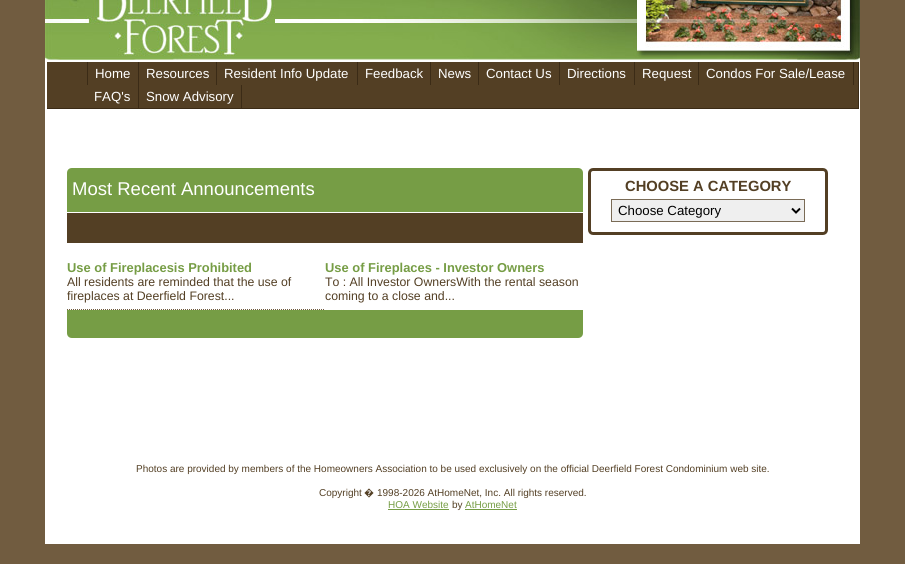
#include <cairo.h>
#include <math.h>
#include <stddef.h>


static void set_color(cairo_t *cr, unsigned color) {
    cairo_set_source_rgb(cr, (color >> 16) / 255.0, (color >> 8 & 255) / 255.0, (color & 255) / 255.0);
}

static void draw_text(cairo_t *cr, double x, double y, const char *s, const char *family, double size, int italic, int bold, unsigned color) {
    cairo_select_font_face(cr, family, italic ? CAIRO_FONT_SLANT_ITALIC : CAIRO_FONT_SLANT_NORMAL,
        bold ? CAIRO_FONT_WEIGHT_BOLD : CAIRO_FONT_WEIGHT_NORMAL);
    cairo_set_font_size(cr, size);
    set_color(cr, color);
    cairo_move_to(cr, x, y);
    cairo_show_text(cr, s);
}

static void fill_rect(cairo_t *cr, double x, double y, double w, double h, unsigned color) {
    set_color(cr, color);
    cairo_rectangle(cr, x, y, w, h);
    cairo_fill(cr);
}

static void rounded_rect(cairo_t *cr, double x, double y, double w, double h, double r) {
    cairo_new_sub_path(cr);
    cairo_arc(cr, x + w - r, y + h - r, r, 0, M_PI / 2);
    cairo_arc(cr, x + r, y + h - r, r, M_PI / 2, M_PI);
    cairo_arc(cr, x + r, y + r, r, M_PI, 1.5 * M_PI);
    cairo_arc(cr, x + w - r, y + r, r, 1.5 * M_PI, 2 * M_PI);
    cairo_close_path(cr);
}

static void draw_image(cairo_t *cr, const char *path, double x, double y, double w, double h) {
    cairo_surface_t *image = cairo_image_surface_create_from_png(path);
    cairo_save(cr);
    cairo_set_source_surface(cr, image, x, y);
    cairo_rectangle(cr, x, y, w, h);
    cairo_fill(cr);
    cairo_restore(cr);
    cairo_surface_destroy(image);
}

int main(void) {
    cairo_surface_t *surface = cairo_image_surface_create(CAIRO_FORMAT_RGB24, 905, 564);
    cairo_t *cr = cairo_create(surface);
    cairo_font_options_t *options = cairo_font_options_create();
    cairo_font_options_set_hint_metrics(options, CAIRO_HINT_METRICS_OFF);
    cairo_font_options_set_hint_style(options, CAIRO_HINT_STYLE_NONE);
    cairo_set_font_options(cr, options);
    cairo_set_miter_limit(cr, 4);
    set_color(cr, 0x715C40);
    cairo_paint(cr);
    draw_image(cr, "assets/img1.png", 45, 0, 230, 60);
    draw_image(cr, "assets/img2.png", 275, 0, 362, 60);
    draw_image(cr, "assets/img3.png", 637, 0, 223, 60);
    fill_rect(cr, 45, 60, 815, 484, 0xFFFFFF);
    fill_rect(cr, 47, 62, 811, 46, 0x533F24);
    fill_rect(cr, 858, 62, 1, 47, 0x3B2B16);
    fill_rect(cr, 47, 108, 812, 1, 0x3B2B16);
    fill_rect(cr, 138, 62, 1, 46, 0x3B2B16);
    fill_rect(cr, 87, 62, 1, 23, 0x3B2B16);
    draw_text(cr, 95, 78, "Home", "Liberation Sans", 13.25, 0, 0, 0xFFFFFF);
    fill_rect(cr, 216, 62, 1, 23, 0x3B2B16);
    draw_text(cr, 146, 78, "Resources", "Liberation Sans", 13.25, 0, 0, 0xFFFFFF);
    fill_rect(cr, 357, 62, 1, 23, 0x3B2B16);
    draw_text(cr, 224, 78, "Resident Info Update", "Liberation Sans", 13.25, 0, 0, 0xFFFFFF);
    fill_rect(cr, 430, 62, 1, 23, 0x3B2B16);
    draw_text(cr, 365, 78, "Feedback", "Liberation Sans", 13.25, 0, 0, 0xFFFFFF);
    fill_rect(cr, 478, 62, 1, 23, 0x3B2B16);
    draw_text(cr, 438, 78, "News", "Liberation Sans", 13.25, 0, 0, 0xFFFFFF);
    fill_rect(cr, 559, 62, 1, 23, 0x3B2B16);
    draw_text(cr, 486, 78, "Contact Us", "Liberation Sans", 13.25, 0, 0, 0xFFFFFF);
    fill_rect(cr, 634, 62, 1, 23, 0x3B2B16);
    draw_text(cr, 567, 78, "Directions", "Liberation Sans", 13.25, 0, 0, 0xFFFFFF);
    fill_rect(cr, 698, 62, 1, 23, 0x3B2B16);
    draw_text(cr, 642, 78, "Request", "Liberation Sans", 13.25, 0, 0, 0xFFFFFF);
    fill_rect(cr, 853, 62, 1, 23, 0x3B2B16);
    draw_text(cr, 706, 78, "Condos For Sale/Lease", "Liberation Sans", 13.25, 0, 0, 0xFFFFFF);
    draw_text(cr, 94, 101, "FAQ's", "Liberation Sans", 13.25, 0, 0, 0xFFFFFF);
    fill_rect(cr, 241, 85, 1, 23, 0x3B2B16);
    draw_text(cr, 146, 101, "Snow Advisory", "Liberation Sans", 13.25, 0, 0, 0xFFFFFF);
    set_color(cr, 0x769D45);
    cairo_new_path(cr);
    cairo_move_to(cr, 72, 168);
    cairo_line_to(cr, 578, 168);
    cairo_curve_to(cr, 581, 168, 583, 170, 583, 173);
    cairo_line_to(cr, 583, 212);
    cairo_line_to(cr, 67, 212);
    cairo_line_to(cr, 67, 173);
    cairo_curve_to(cr, 67, 170, 69, 168, 72, 168);
    cairo_close_path(cr);
    cairo_fill(cr);
    draw_text(cr, 72, 195, "Most Recent Announcements", "Liberation Sans", 18.5, 0, 0, 0xFFFFFF);
    fill_rect(cr, 67, 213, 516, 30, 0x533F24);
    cairo_new_path(cr);
    cairo_move_to(cr, 67, 309.5);
    cairo_line_to(cr, 325, 309.5);
    set_color(cr, 0x715C40);
    cairo_set_line_width(cr, 1);
    cairo_set_dash(cr, (double[]){1, 1}, 2, 0);
    cairo_stroke(cr);
    draw_text(cr, 67, 272, "Use of Fireplacesis Prohibited", "Liberation Sans", 12.9, 0, 1, 0x769D45);
    draw_text(cr, 67, 286, "All residents are reminded that the use of", "Liberation Sans", 12.3, 0, 0, 0x533F24);
    draw_text(cr, 67, 300, "fireplaces at Deerfield Forest...", "Liberation Sans", 12.3, 0, 0, 0x533F24);
    draw_text(cr, 325, 272, "Use of Fireplaces - Investor Owners", "Liberation Sans", 12.9, 0, 1, 0x769D45);
    draw_text(cr, 325, 286, "To : All Investor OwnersWith the rental season", "Liberation Sans", 12.3, 0, 0, 0x533F24);
    draw_text(cr, 325, 300, "coming to a close and...", "Liberation Sans", 12.3, 0, 0, 0x533F24);
    set_color(cr, 0x769D45);
    cairo_new_path(cr);
    cairo_move_to(cr, 67, 310);
    cairo_line_to(cr, 583, 310);
    cairo_line_to(cr, 583, 333);
    cairo_curve_to(cr, 583, 336, 581, 338, 578, 338);
    cairo_line_to(cr, 72, 338);
    cairo_curve_to(cr, 69, 338, 67, 336, 67, 333);
    cairo_close_path(cr);
    cairo_fill(cr);
    rounded_rect(cr, 589.5, 169.5, 237, 64, 3.5);
    set_color(cr, 0x533F24);
    cairo_set_line_width(cr, 3);
    cairo_set_dash(cr, NULL, 0, 0);
    cairo_stroke(cr);
    draw_text(cr, 625, 191, "CHOOSE A CATEGORY", "Liberation Sans", 14.75, 0, 1, 0x533F24);
    set_color(cr, 0xEFEFEF);
    cairo_rectangle(cr, 611.5, 199.5, 193, 22);
    cairo_fill_preserve(cr);
    set_color(cr, 0x7A6B56);
    cairo_set_line_width(cr, 1);
    cairo_stroke(cr);
    cairo_new_path(cr);
    cairo_move_to(cr, 792, 208.5);
    cairo_line_to(cr, 796, 212.5);
    cairo_line_to(cr, 800, 208.5);
    set_color(cr, 0x000000);
    cairo_set_line_width(cr, 2);
    cairo_stroke(cr);
    draw_text(cr, 618, 215, "Choose Category", "Liberation Sans", 13.25, 0, 0, 0x000000);
    draw_text(cr, 136, 472, "Photos are provided by members of the Homeowners Association to be used exclusively on the official Deerfield Forest Condominium web site.", "Liberation Sans", 10, 0, 0, 0x533F24);
    draw_text(cr, 319, 496, "Copyright", "Liberation Sans", 10, 0, 0, 0x533F24);
    draw_text(cr, 364, 496, "�", "Noto Sans", 10, 0, 0, 0x533F24);
    draw_text(cr, 377, 496, "1998-2026 AtHomeNet, Inc. All rights reserved.", "Liberation Sans", 10, 0, 0, 0x533F24);
    draw_text(cr, 388, 508, "HOA Website", "Liberation Sans", 10, 0, 0, 0x769D45);
    fill_rect(cr, 388, 509, 61, 1, 0x769D45);
    draw_text(cr, 452, 508, "by", "Liberation Sans", 10, 0, 0, 0x533F24);
    draw_text(cr, 465, 508, "AtHomeNet", "Liberation Sans", 10, 0, 0, 0x769D45);
    fill_rect(cr, 465, 509, 52, 1, 0x769D45);
    cairo_surface_write_to_png(surface, "output.png");
    cairo_font_options_destroy(options);
    cairo_destroy(cr);
    cairo_surface_destroy(surface);
    return 0;
}
